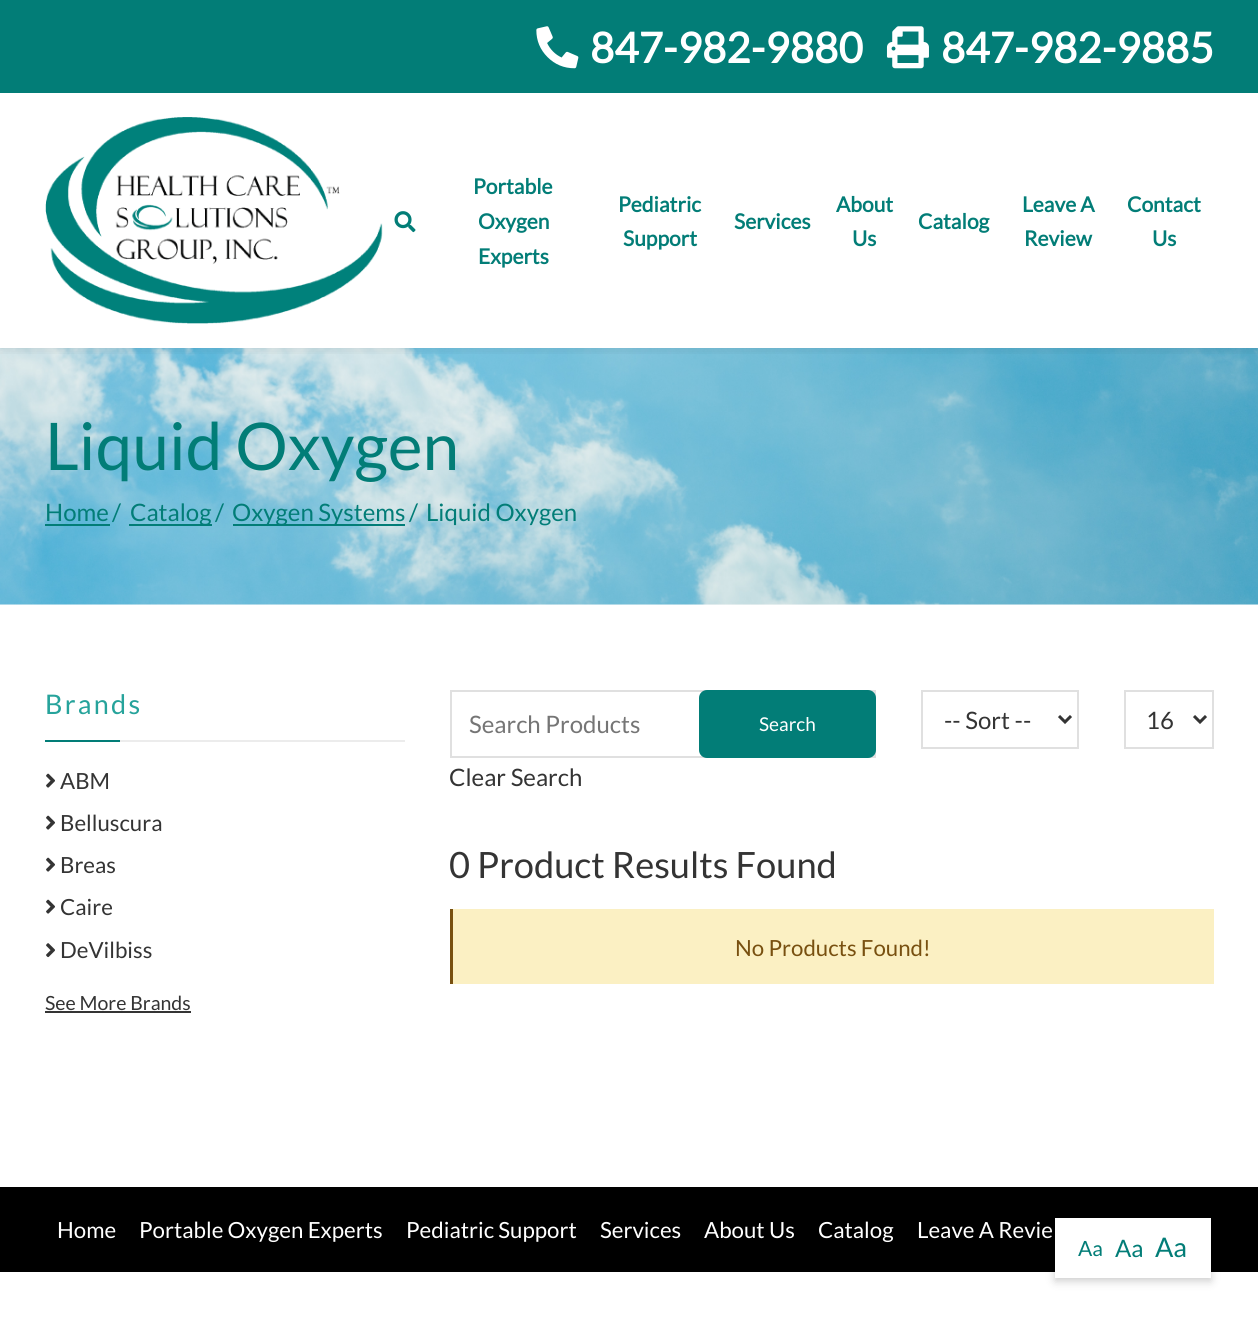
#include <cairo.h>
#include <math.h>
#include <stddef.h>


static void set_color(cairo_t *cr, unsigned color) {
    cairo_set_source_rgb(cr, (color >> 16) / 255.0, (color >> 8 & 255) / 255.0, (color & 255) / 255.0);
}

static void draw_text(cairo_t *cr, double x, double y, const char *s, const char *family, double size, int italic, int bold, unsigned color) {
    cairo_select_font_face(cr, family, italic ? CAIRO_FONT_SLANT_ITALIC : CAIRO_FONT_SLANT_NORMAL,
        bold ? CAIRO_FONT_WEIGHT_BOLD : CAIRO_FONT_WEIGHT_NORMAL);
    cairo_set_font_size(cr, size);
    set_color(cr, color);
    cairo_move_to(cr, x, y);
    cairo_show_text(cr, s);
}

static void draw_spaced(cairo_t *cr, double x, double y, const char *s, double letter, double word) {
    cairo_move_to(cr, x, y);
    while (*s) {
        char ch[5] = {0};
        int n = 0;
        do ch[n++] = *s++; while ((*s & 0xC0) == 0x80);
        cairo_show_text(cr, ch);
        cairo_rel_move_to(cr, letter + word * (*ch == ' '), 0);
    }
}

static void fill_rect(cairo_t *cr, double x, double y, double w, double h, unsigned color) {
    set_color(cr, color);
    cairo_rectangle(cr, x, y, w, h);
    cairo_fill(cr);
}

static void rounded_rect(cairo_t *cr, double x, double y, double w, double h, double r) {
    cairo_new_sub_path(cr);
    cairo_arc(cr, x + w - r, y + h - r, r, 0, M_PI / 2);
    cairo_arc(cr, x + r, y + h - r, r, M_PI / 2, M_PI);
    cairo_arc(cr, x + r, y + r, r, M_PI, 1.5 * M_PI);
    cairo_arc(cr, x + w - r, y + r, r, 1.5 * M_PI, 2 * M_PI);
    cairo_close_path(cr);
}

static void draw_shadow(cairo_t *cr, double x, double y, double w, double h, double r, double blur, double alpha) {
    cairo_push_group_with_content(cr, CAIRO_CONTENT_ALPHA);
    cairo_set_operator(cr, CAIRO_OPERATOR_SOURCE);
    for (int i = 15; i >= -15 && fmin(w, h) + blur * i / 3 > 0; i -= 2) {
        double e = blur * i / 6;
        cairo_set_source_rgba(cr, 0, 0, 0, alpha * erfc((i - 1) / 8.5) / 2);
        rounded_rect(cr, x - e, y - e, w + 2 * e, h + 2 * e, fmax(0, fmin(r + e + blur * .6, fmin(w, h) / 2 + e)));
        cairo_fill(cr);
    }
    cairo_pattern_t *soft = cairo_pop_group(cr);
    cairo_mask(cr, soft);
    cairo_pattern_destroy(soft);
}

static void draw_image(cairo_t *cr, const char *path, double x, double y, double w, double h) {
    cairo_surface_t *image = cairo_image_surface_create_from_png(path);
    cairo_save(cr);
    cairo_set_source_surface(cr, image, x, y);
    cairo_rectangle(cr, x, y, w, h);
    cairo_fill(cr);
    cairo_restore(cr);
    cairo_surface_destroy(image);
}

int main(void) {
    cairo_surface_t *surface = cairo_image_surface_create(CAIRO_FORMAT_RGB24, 1258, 1337);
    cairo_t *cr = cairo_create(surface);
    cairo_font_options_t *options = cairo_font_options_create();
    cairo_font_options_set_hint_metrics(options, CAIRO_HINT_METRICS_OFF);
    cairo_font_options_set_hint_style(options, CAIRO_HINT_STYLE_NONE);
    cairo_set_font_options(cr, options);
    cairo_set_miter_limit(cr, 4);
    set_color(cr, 0xFFFFFF);
    cairo_paint(cr);
    fill_rect(cr, 0, 604, 1258, 1, 0xF9F9F9);
    draw_image(cr, "assets/img5.png", 0, 348, 1258, 257);
    cairo_save(cr);
    cairo_rectangle(cr, 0, 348, 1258, 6);
    cairo_clip(cr);
    set_color(cr, 0x000000);
    draw_shadow(cr, 0, 0, 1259, 348, 0, 7.5, 0.1);
    cairo_restore(cr);
    fill_rect(cr, 0, 0, 1258, 93, 0x027D77);
    draw_image(cr, "assets/img1.png", 536, 26, 43, 43);
    draw_text(cr, 590, 63, "847-982-9880", "Lato", 42, 0, 1, 0xFFFFFF);
    draw_image(cr, "assets/img2.png", 886, 26, 43, 43);
    draw_text(cr, 941, 63, "847-982-9885", "Lato", 42, 0, 1, 0xFFFFFF);
    draw_image(cr, "assets/img3.png", 45, 117, 338, 207);
    draw_image(cr, "assets/img4.png", 394, 211, 22, 22);
    draw_text(cr, 473, 194, "Portable", "Lato", 21, 0, 1, 0x027D77);
    draw_text(cr, 478, 229, "Oxygen", "Lato", 21, 0, 1, 0x027D77);
    draw_text(cr, 478, 264, "Experts", "Lato", 21, 0, 1, 0x027D77);
    draw_text(cr, 618, 212, "Pediatric", "Lato", 21, 0, 1, 0x027D77);
    draw_text(cr, 623, 246, "Support", "Lato", 21, 0, 1, 0x027D77);
    draw_text(cr, 734, 229, "Services", "Lato", 21, 0, 1, 0x027D77);
    draw_text(cr, 836, 212, "About", "Lato", 21, 0, 1, 0x027D77);
    draw_text(cr, 852, 246, "Us", "Lato", 21, 0, 1, 0x027D77);
    draw_text(cr, 918, 229, "Catalog", "Lato", 21, 0, 1, 0x027D77);
    draw_text(cr, 1022, 212, "Leave A", "Lato", 21, 0, 1, 0x027D77);
    draw_text(cr, 1024, 246, "Review", "Lato", 21, 0, 1, 0x027D77);
    draw_text(cr, 1127, 212, "Contact", "Lato", 21, 0, 1, 0x027D77);
    draw_text(cr, 1152, 246, "Us", "Lato", 21, 0, 1, 0x027D77);
    draw_text(cr, 45, 470, "Liquid Oxygen", "Lato", 65.75, 0, 0, 0x027D77);
    draw_text(cr, 45, 521, "Home", "Lato", 24, 0, 0, 0x027D77);
    fill_rect(cr, 45, 524, 65, 2, 0x027D77);
    draw_text(cr, 112, 521, "/", "Lato", 24, 0, 0, 0x027D77);
    fill_rect(cr, 129, 524, 83, 2, 0x027D77);
    draw_text(cr, 130, 521, "Catalog", "Lato", 24, 0, 0, 0x027D77);
    draw_text(cr, 215, 521, "/", "Lato", 24, 0, 0, 0x027D77);
    fill_rect(cr, 233, 524, 172, 2, 0x027D77);
    draw_text(cr, 232, 521, "Oxygen Systems", "Lato", 24, 0, 0, 0x027D77);
    draw_text(cr, 409, 521, "/", "Lato", 24, 0, 0, 0x027D77);
    draw_text(cr, 426, 521, "Liquid Oxygen", "Lato", 24, 0, 0, 0x027D77);
    fill_rect(cr, 120, 740, 285, 2, 0xECECEC);
    cairo_set_font_size(cr, 27);
    set_color(cr, 0x26A39B);
    draw_spaced(cr, 45, 714, "Brands", 2.25, 0);
    fill_rect(cr, 45, 740, 75, 2, 0x027D77);
    draw_image(cr, "assets/img6.png", 46, 773, 9, 15);
    draw_text(cr, 60, 789, "ABM", "Lato", 22.25, 0, 0, 0x343434);
    draw_image(cr, "assets/img6.png", 46, 815, 9, 15);
    draw_text(cr, 60, 831, "Belluscura", "Lato", 22.25, 0, 0, 0x343434);
    draw_image(cr, "assets/img6.png", 46, 857, 9, 15);
    draw_text(cr, 60, 873, "Breas", "Lato", 22.25, 0, 0, 0x343434);
    draw_image(cr, "assets/img6.png", 46, 899, 9, 15);
    draw_text(cr, 60, 915, "Caire", "Lato", 22.25, 0, 0, 0x343434);
    draw_image(cr, "assets/img7.png", 46, 943, 9, 15);
    draw_text(cr, 60, 958, "DeVilbiss", "Lato", 22.25, 0, 0, 0x343434);
    draw_text(cr, 45, 1010, "See More Brands", "Lato", 19.5, 0, 0, 0x343434);
    fill_rect(cr, 45, 1011, 146, 2, 0x343434);
    cairo_rectangle(cr, 451, 691, 424, 66);
    set_color(cr, 0xE0E0E0);
    cairo_stroke(cr);
    draw_text(cr, 469, 733, "Search Products", "Lato", 24, 0, 0, 0x757575);
    set_color(cr, 0x027D77);
    rounded_rect(cr, 699, 690, 177, 68, 8);
    cairo_fill(cr);
    draw_text(cr, 759, 731, "Search", "Lato", 19, 0, 0, 0xFFFFFF);
    draw_text(cr, 449, 786, "Clear Search", "Lato", 24, 0, 0, 0x343434);
    cairo_rectangle(cr, 922, 691, 156, 57);
    set_color(cr, 0xE0E0E0);
    cairo_stroke(cr);
    cairo_new_path(cr);
    cairo_move_to(cr, 1059, 716);
    cairo_line_to(cr, 1065, 722);
    cairo_line_to(cr, 1071, 716);
    set_color(cr, 0x343434);
    cairo_set_line_width(cr, 3);
    cairo_stroke(cr);
    draw_text(cr, 944, 729, "-- Sort --", "Lato", 24, 0, 0, 0x343434);
    cairo_rectangle(cr, 1125, 691, 88, 57);
    set_color(cr, 0xE0E0E0);
    cairo_set_line_width(cr, 2);
    cairo_stroke(cr);
    cairo_new_path(cr);
    cairo_move_to(cr, 1194, 716);
    cairo_line_to(cr, 1200, 722);
    cairo_line_to(cr, 1206, 716);
    set_color(cr, 0x343434);
    cairo_set_line_width(cr, 3);
    cairo_stroke(cr);
    draw_text(cr, 1146, 729, "16", "Lato", 24, 0, 0, 0x343434);
    draw_text(cr, 449, 878, "0 Product Results Found", "Lato", 36.25, 0, 0, 0x343434);
    fill_rect(cr, 453, 909, 761, 75, 0xFBF0C3);
    fill_rect(cr, 450, 909, 3, 75, 0x785010);
    draw_text(cr, 735, 956, "No Products Found!", "Lato", 22.25, 0, 0, 0x785010);
    fill_rect(cr, 0, 1187, 1258, 85, 0x000000);
    draw_text(cr, 57, 1238, "Home", "Lato", 22.25, 0, 0, 0xFFFFFF);
    draw_text(cr, 139, 1238, "Portable Oxygen Experts", "Lato", 22.25, 0, 0, 0xFFFFFF);
    draw_text(cr, 406, 1238, "Pediatric Support", "Lato", 22.25, 0, 0, 0xFFFFFF);
    draw_text(cr, 600, 1238, "Services", "Lato", 22.25, 0, 0, 0xFFFFFF);
    draw_text(cr, 704, 1238, "About Us", "Lato", 22.25, 0, 0, 0xFFFFFF);
    draw_text(cr, 818, 1238, "Catalog", "Lato", 22.25, 0, 0, 0xFFFFFF);
    draw_text(cr, 917, 1238, "Leave A Revie", "Lato", 22.25, 0, 0, 0xFFFFFF);
    set_color(cr, 0x000000);
    draw_shadow(cr, 1055, 1221, 156, 60, 0, 4.5, 0.2);
    fill_rect(cr, 1055, 1218, 156, 60, 0xFFFFFF);
    draw_text(cr, 1078, 1256, "Aa", "Lato", 21, 0, 0, 0x027D77);
    draw_text(cr, 1115, 1257, "Aa", "Lato", 24, 0, 0, 0x027D77);
    draw_text(cr, 1155, 1257, "Aa", "Lato", 27, 0, 0, 0x027D77);
    cairo_surface_write_to_png(surface, "output.png");
    cairo_font_options_destroy(options);
    cairo_destroy(cr);
    cairo_surface_destroy(surface);
    return 0;
}
